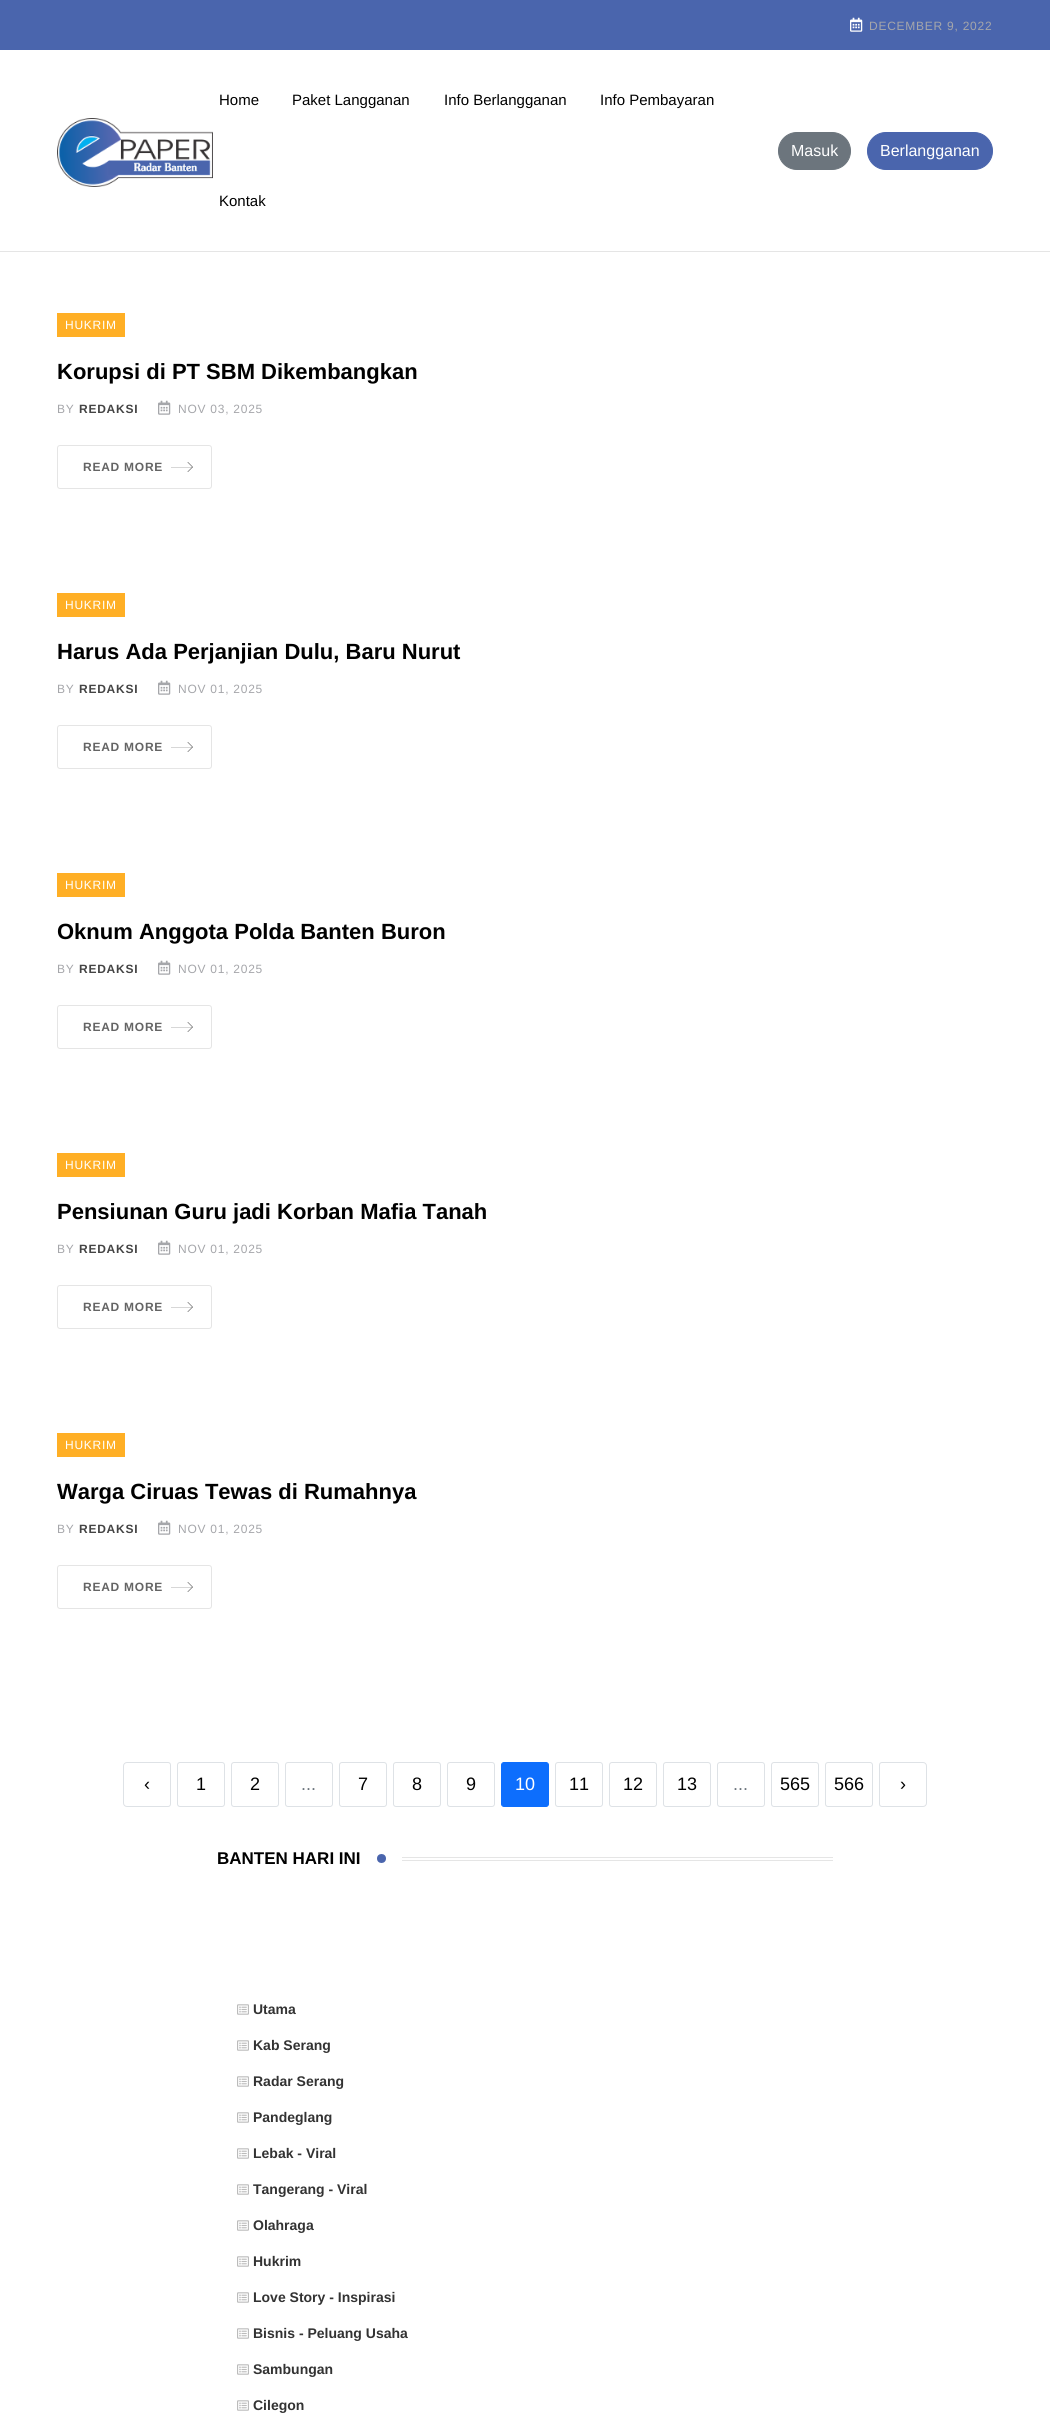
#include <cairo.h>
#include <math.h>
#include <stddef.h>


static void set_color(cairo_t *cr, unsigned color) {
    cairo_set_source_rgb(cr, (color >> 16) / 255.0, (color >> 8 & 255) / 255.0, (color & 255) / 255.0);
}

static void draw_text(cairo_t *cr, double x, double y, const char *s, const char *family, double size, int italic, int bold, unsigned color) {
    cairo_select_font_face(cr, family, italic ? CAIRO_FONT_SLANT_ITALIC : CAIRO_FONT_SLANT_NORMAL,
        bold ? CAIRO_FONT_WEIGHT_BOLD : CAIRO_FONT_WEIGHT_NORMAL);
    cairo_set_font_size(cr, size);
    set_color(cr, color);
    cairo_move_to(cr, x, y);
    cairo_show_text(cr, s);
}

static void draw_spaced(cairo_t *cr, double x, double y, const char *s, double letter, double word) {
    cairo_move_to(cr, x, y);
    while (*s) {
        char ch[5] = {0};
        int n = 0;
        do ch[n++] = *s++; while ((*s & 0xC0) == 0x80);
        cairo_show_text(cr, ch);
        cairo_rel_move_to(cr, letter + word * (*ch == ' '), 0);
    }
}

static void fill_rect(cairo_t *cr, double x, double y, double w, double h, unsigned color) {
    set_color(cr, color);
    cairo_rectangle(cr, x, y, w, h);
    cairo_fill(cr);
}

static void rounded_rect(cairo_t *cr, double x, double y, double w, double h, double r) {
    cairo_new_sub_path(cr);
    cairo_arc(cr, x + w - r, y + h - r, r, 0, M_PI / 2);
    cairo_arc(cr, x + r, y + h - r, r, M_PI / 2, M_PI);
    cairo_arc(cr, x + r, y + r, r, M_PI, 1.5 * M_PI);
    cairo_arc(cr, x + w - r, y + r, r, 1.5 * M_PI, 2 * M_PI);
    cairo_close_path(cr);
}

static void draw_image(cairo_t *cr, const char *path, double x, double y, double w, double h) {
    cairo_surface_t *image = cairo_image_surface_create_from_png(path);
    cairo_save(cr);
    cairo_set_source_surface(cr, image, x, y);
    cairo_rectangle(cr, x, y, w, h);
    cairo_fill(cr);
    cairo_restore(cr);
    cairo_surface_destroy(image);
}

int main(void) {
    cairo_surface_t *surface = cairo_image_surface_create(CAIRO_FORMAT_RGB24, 1050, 2415);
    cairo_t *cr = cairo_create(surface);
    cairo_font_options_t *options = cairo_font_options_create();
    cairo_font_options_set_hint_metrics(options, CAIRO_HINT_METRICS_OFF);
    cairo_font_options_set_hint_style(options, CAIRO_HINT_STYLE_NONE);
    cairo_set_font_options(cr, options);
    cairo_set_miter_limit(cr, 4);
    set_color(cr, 0xFFFFFF);
    cairo_paint(cr);
    fill_rect(cr, 0, 0, 1050, 50, 0x4A65AD);
    draw_image(cr, "assets/img1.png", 850, 17, 13, 15);
    cairo_select_font_face(cr, "Liberation Sans", CAIRO_FONT_SLANT_NORMAL, CAIRO_FONT_WEIGHT_NORMAL);
    cairo_set_font_size(cr, 12);
    set_color(cr, 0xA5A6AA);
    draw_spaced(cr, 869, 30, "DECEMBER 9, 2022", 0.75, 0);
    fill_rect(cr, 0, 251, 1050, 1, 0xE5E5E5);
    draw_image(cr, "assets/img2.png", 57, 118, 156, 69);
    draw_text(cr, 219, 105, "Home", "Liberation Sans", 15, 0, 0, 0x000000);
    draw_text(cr, 292, 105, "Paket Langganan", "Liberation Sans", 15, 0, 0, 0x000000);
    draw_text(cr, 444, 105, "Info Berlangganan", "Liberation Sans", 15, 0, 0, 0x000000);
    draw_text(cr, 600, 105, "Info Pembayaran", "Liberation Sans", 15, 0, 0, 0x000000);
    draw_text(cr, 219, 206, "Kontak", "Liberation Sans", 15, 0, 0, 0x000000);
    set_color(cr, 0x6C757D);
    rounded_rect(cr, 778.5, 132.5, 72, 37, 18.5);
    cairo_fill_preserve(cr);
    cairo_set_line_width(cr, 1);
    cairo_stroke(cr);
    draw_text(cr, 791, 156, "Masuk", "Liberation Sans", 16, 0, 0, 0xFFFFFF);
    set_color(cr, 0x4A65AD);
    rounded_rect(cr, 867.5, 132.5, 125, 37, 18.5);
    cairo_fill_preserve(cr);
    cairo_stroke(cr);
    draw_text(cr, 880, 156, "Berlangganan", "Liberation Sans", 16, 0, 0, 0xFFFFFF);
    fill_rect(cr, 57, 313, 68, 24, 0xFFAF25);
    cairo_set_font_size(cr, 12);
    set_color(cr, 0xFFFFFF);
    draw_spaced(cr, 65, 329, "HUKRIM", 0.75, 0);
    draw_text(cr, 57, 379, "Korupsi di PT SBM Dikembangkan", "Liberation Sans", 22, 0, 1, 0x000000);
    cairo_select_font_face(cr, "Liberation Sans", CAIRO_FONT_SLANT_NORMAL, CAIRO_FONT_WEIGHT_NORMAL);
    cairo_set_font_size(cr, 12);
    set_color(cr, 0xA5A6AA);
    draw_spaced(cr, 57, 413, "BY", 0.75, 0);
    cairo_select_font_face(cr, "Liberation Sans", CAIRO_FONT_SLANT_NORMAL, CAIRO_FONT_WEIGHT_BOLD);
    set_color(cr, 0x444444);
    draw_spaced(cr, 79, 413, "REDAKSI", 0.75, 0);
    draw_image(cr, "assets/img3.png", 158, 400, 13, 15);
    cairo_select_font_face(cr, "Liberation Sans", CAIRO_FONT_SLANT_NORMAL, CAIRO_FONT_WEIGHT_NORMAL);
    set_color(cr, 0xA5A6AA);
    draw_spaced(cr, 178, 413, "NOV 03, 2025", 0.75, 0);
    rounded_rect(cr, 57.5, 445.5, 154, 43, 2.5);
    set_color(cr, 0xE5E5E5);
    cairo_stroke(cr);
    cairo_select_font_face(cr, "Liberation Sans", CAIRO_FONT_SLANT_NORMAL, CAIRO_FONT_WEIGHT_BOLD);
    set_color(cr, 0x646464);
    draw_spaced(cr, 83, 471, "READ MORE", 0.75, 0);
    draw_image(cr, "assets/img4.png", 171, 462, 22, 10);
    fill_rect(cr, 57, 593, 68, 24, 0xFFAF25);
    cairo_select_font_face(cr, "Liberation Sans", CAIRO_FONT_SLANT_NORMAL, CAIRO_FONT_WEIGHT_NORMAL);
    set_color(cr, 0xFFFFFF);
    draw_spaced(cr, 65, 609, "HUKRIM", 0.75, 0);
    draw_text(cr, 57, 659, "Harus Ada Perjanjian Dulu, Baru Nurut", "Liberation Sans", 22, 0, 1, 0x000000);
    cairo_select_font_face(cr, "Liberation Sans", CAIRO_FONT_SLANT_NORMAL, CAIRO_FONT_WEIGHT_NORMAL);
    cairo_set_font_size(cr, 12);
    set_color(cr, 0xA5A6AA);
    draw_spaced(cr, 57, 693, "BY", 0.75, 0);
    cairo_select_font_face(cr, "Liberation Sans", CAIRO_FONT_SLANT_NORMAL, CAIRO_FONT_WEIGHT_BOLD);
    set_color(cr, 0x444444);
    draw_spaced(cr, 79, 693, "REDAKSI", 0.75, 0);
    draw_image(cr, "assets/img3.png", 158, 680, 13, 15);
    cairo_select_font_face(cr, "Liberation Sans", CAIRO_FONT_SLANT_NORMAL, CAIRO_FONT_WEIGHT_NORMAL);
    set_color(cr, 0xA5A6AA);
    draw_spaced(cr, 178, 693, "NOV 01, 2025", 0.75, 0);
    rounded_rect(cr, 57.5, 725.5, 154, 43, 2.5);
    set_color(cr, 0xE5E5E5);
    cairo_stroke(cr);
    cairo_select_font_face(cr, "Liberation Sans", CAIRO_FONT_SLANT_NORMAL, CAIRO_FONT_WEIGHT_BOLD);
    set_color(cr, 0x646464);
    draw_spaced(cr, 83, 751, "READ MORE", 0.75, 0);
    draw_image(cr, "assets/img4.png", 171, 742, 22, 10);
    fill_rect(cr, 57, 873, 68, 24, 0xFFAF25);
    cairo_select_font_face(cr, "Liberation Sans", CAIRO_FONT_SLANT_NORMAL, CAIRO_FONT_WEIGHT_NORMAL);
    set_color(cr, 0xFFFFFF);
    draw_spaced(cr, 65, 889, "HUKRIM", 0.75, 0);
    draw_text(cr, 57, 939, "Oknum Anggota Polda Banten Buron", "Liberation Sans", 22, 0, 1, 0x000000);
    cairo_select_font_face(cr, "Liberation Sans", CAIRO_FONT_SLANT_NORMAL, CAIRO_FONT_WEIGHT_NORMAL);
    cairo_set_font_size(cr, 12);
    set_color(cr, 0xA5A6AA);
    draw_spaced(cr, 57, 973, "BY", 0.75, 0);
    cairo_select_font_face(cr, "Liberation Sans", CAIRO_FONT_SLANT_NORMAL, CAIRO_FONT_WEIGHT_BOLD);
    set_color(cr, 0x444444);
    draw_spaced(cr, 79, 973, "REDAKSI", 0.75, 0);
    draw_image(cr, "assets/img3.png", 158, 960, 13, 15);
    cairo_select_font_face(cr, "Liberation Sans", CAIRO_FONT_SLANT_NORMAL, CAIRO_FONT_WEIGHT_NORMAL);
    set_color(cr, 0xA5A6AA);
    draw_spaced(cr, 178, 973, "NOV 01, 2025", 0.75, 0);
    rounded_rect(cr, 57.5, 1005.5, 154, 43, 2.5);
    set_color(cr, 0xE5E5E5);
    cairo_stroke(cr);
    cairo_select_font_face(cr, "Liberation Sans", CAIRO_FONT_SLANT_NORMAL, CAIRO_FONT_WEIGHT_BOLD);
    set_color(cr, 0x646464);
    draw_spaced(cr, 83, 1031, "READ MORE", 0.75, 0);
    draw_image(cr, "assets/img4.png", 171, 1022, 22, 10);
    fill_rect(cr, 57, 1153, 68, 24, 0xFFAF25);
    cairo_select_font_face(cr, "Liberation Sans", CAIRO_FONT_SLANT_NORMAL, CAIRO_FONT_WEIGHT_NORMAL);
    set_color(cr, 0xFFFFFF);
    draw_spaced(cr, 65, 1169, "HUKRIM", 0.75, 0);
    draw_text(cr, 57, 1219, "Pensiunan Guru jadi Korban Mafia Tanah", "Liberation Sans", 22, 0, 1, 0x000000);
    cairo_select_font_face(cr, "Liberation Sans", CAIRO_FONT_SLANT_NORMAL, CAIRO_FONT_WEIGHT_NORMAL);
    cairo_set_font_size(cr, 12);
    set_color(cr, 0xA5A6AA);
    draw_spaced(cr, 57, 1253, "BY", 0.75, 0);
    cairo_select_font_face(cr, "Liberation Sans", CAIRO_FONT_SLANT_NORMAL, CAIRO_FONT_WEIGHT_BOLD);
    set_color(cr, 0x444444);
    draw_spaced(cr, 79, 1253, "REDAKSI", 0.75, 0);
    draw_image(cr, "assets/img3.png", 158, 1240, 13, 15);
    cairo_select_font_face(cr, "Liberation Sans", CAIRO_FONT_SLANT_NORMAL, CAIRO_FONT_WEIGHT_NORMAL);
    set_color(cr, 0xA5A6AA);
    draw_spaced(cr, 178, 1253, "NOV 01, 2025", 0.75, 0);
    rounded_rect(cr, 57.5, 1285.5, 154, 43, 2.5);
    set_color(cr, 0xE5E5E5);
    cairo_stroke(cr);
    cairo_select_font_face(cr, "Liberation Sans", CAIRO_FONT_SLANT_NORMAL, CAIRO_FONT_WEIGHT_BOLD);
    set_color(cr, 0x646464);
    draw_spaced(cr, 83, 1311, "READ MORE", 0.75, 0);
    draw_image(cr, "assets/img4.png", 171, 1302, 22, 10);
    fill_rect(cr, 57, 1433, 68, 24, 0xFFAF25);
    cairo_select_font_face(cr, "Liberation Sans", CAIRO_FONT_SLANT_NORMAL, CAIRO_FONT_WEIGHT_NORMAL);
    set_color(cr, 0xFFFFFF);
    draw_spaced(cr, 65, 1449, "HUKRIM", 0.75, 0);
    draw_text(cr, 57, 1499, "Warga Ciruas Tewas di Rumahnya", "Liberation Sans", 22, 0, 1, 0x000000);
    cairo_select_font_face(cr, "Liberation Sans", CAIRO_FONT_SLANT_NORMAL, CAIRO_FONT_WEIGHT_NORMAL);
    cairo_set_font_size(cr, 12);
    set_color(cr, 0xA5A6AA);
    draw_spaced(cr, 57, 1533, "BY", 0.75, 0);
    cairo_select_font_face(cr, "Liberation Sans", CAIRO_FONT_SLANT_NORMAL, CAIRO_FONT_WEIGHT_BOLD);
    set_color(cr, 0x444444);
    draw_spaced(cr, 79, 1533, "REDAKSI", 0.75, 0);
    draw_image(cr, "assets/img3.png", 158, 1520, 13, 15);
    cairo_select_font_face(cr, "Liberation Sans", CAIRO_FONT_SLANT_NORMAL, CAIRO_FONT_WEIGHT_NORMAL);
    set_color(cr, 0xA5A6AA);
    draw_spaced(cr, 178, 1533, "NOV 01, 2025", 0.75, 0);
    rounded_rect(cr, 57.5, 1565.5, 154, 43, 2.5);
    set_color(cr, 0xE5E5E5);
    cairo_stroke(cr);
    cairo_select_font_face(cr, "Liberation Sans", CAIRO_FONT_SLANT_NORMAL, CAIRO_FONT_WEIGHT_BOLD);
    set_color(cr, 0x646464);
    draw_spaced(cr, 83, 1591, "READ MORE", 0.75, 0);
    draw_image(cr, "assets/img4.png", 171, 1582, 22, 10);
    cairo_new_path(cr);
    cairo_move_to(cr, 127, 1762.5);
    cairo_line_to(cr, 168, 1762.5);
    cairo_curve_to(cr, 169.5, 1762.5, 170.5, 1763.5, 170.5, 1765);
    cairo_line_to(cr, 170.5, 1804);
    cairo_curve_to(cr, 170.5, 1805.5, 169.5, 1806.5, 168, 1806.5);
    cairo_line_to(cr, 127, 1806.5);
    cairo_curve_to(cr, 125, 1806.5, 123.5, 1805, 123.5, 1803);
    cairo_line_to(cr, 123.5, 1766);
    cairo_curve_to(cr, 123.5, 1764, 125, 1762.5, 127, 1762.5);
    cairo_close_path(cr);
    set_color(cr, 0xDEE2E6);
    cairo_stroke(cr);
    draw_text(cr, 144, 1790, "‹", "Liberation Sans", 18, 0, 0, 0x000000);
    rounded_rect(cr, 177.5, 1762.5, 47, 44, 2.5);
    set_color(cr, 0xDEE2E6);
    cairo_stroke(cr);
    draw_text(cr, 196, 1790, "1", "Liberation Sans", 18, 0, 0, 0x000000);
    rounded_rect(cr, 231.5, 1762.5, 47, 44, 2.5);
    set_color(cr, 0xDEE2E6);
    cairo_stroke(cr);
    draw_text(cr, 250, 1790, "2", "Liberation Sans", 18, 0, 0, 0x000000);
    rounded_rect(cr, 285.5, 1762.5, 47, 44, 2.5);
    set_color(cr, 0xDEE2E6);
    cairo_stroke(cr);
    draw_text(cr, 301, 1790, "...", "Liberation Sans", 18, 0, 0, 0x6C757D);
    rounded_rect(cr, 339.5, 1762.5, 47, 44, 2.5);
    set_color(cr, 0xDEE2E6);
    cairo_stroke(cr);
    draw_text(cr, 358, 1790, "7", "Liberation Sans", 18, 0, 0, 0x000000);
    rounded_rect(cr, 393.5, 1762.5, 47, 44, 2.5);
    set_color(cr, 0xDEE2E6);
    cairo_stroke(cr);
    draw_text(cr, 412, 1790, "8", "Liberation Sans", 18, 0, 0, 0x000000);
    rounded_rect(cr, 447.5, 1762.5, 47, 44, 2.5);
    set_color(cr, 0xDEE2E6);
    cairo_stroke(cr);
    draw_text(cr, 466, 1790, "9", "Liberation Sans", 18, 0, 0, 0x000000);
    set_color(cr, 0x0D6EFD);
    rounded_rect(cr, 501.5, 1762.5, 47, 44, 2.5);
    cairo_fill_preserve(cr);
    cairo_stroke(cr);
    draw_text(cr, 515, 1790, "10", "Liberation Sans", 18, 0, 0, 0xFFFFFF);
    rounded_rect(cr, 555.5, 1762.5, 47, 44, 2.5);
    set_color(cr, 0xDEE2E6);
    cairo_stroke(cr);
    draw_text(cr, 569, 1790, "11", "Liberation Sans", 18, 0, 0, 0x000000);
    rounded_rect(cr, 609.5, 1762.5, 47, 44, 2.5);
    set_color(cr, 0xDEE2E6);
    cairo_stroke(cr);
    draw_text(cr, 623, 1790, "12", "Liberation Sans", 18, 0, 0, 0x000000);
    rounded_rect(cr, 663.5, 1762.5, 47, 44, 2.5);
    set_color(cr, 0xDEE2E6);
    cairo_stroke(cr);
    draw_text(cr, 677, 1790, "13", "Liberation Sans", 18, 0, 0, 0x000000);
    rounded_rect(cr, 717.5, 1762.5, 47, 44, 2.5);
    set_color(cr, 0xDEE2E6);
    cairo_stroke(cr);
    draw_text(cr, 733, 1790, "...", "Liberation Sans", 18, 0, 0, 0x6C757D);
    rounded_rect(cr, 771.5, 1762.5, 47, 44, 2.5);
    set_color(cr, 0xDEE2E6);
    cairo_stroke(cr);
    draw_text(cr, 780, 1790, "565", "Liberation Sans", 18, 0, 0, 0x000000);
    rounded_rect(cr, 825.5, 1762.5, 47, 44, 2.5);
    set_color(cr, 0xDEE2E6);
    cairo_stroke(cr);
    draw_text(cr, 834, 1790, "566", "Liberation Sans", 18, 0, 0, 0x000000);
    cairo_new_path(cr);
    cairo_move_to(cr, 882, 1762.5);
    cairo_line_to(cr, 923, 1762.5);
    cairo_curve_to(cr, 925, 1762.5, 926.5, 1764, 926.5, 1766);
    cairo_line_to(cr, 926.5, 1803);
    cairo_curve_to(cr, 926.5, 1805, 925, 1806.5, 923, 1806.5);
    cairo_line_to(cr, 882, 1806.5);
    cairo_curve_to(cr, 880.5, 1806.5, 879.5, 1805.5, 879.5, 1804);
    cairo_line_to(cr, 879.5, 1765);
    cairo_curve_to(cr, 879.5, 1763.5, 880.5, 1762.5, 882, 1762.5);
    cairo_close_path(cr);
    set_color(cr, 0xDEE2E6);
    cairo_stroke(cr);
    draw_text(cr, 900, 1790, "›", "Liberation Sans", 18, 0, 0, 0x000000);
    draw_text(cr, 217, 1864, "BANTEN HARI INI", "Liberation Sans", 17, 0, 1, 0x000000);
    set_color(cr, 0x4A65AD);
    cairo_new_path(cr);
    cairo_arc(cr, 381.5, 1858.5, 4.5, 0, 2 * M_PI);
    cairo_fill(cr);
    fill_rect(cr, 402, 1857, 431, 1, 0xE5E5E5);
    fill_rect(cr, 402, 1860, 431, 1, 0xE5E5E5);
    draw_image(cr, "assets/img5.png", 237, 2004, 12, 11);
    draw_text(cr, 253, 2014, "Utama", "Liberation Sans", 14, 0, 1, 0x333333);
    draw_image(cr, "assets/img5.png", 237, 2040, 12, 11);
    draw_text(cr, 253, 2050, "Kab Serang", "Liberation Sans", 14, 0, 1, 0x333333);
    draw_image(cr, "assets/img5.png", 237, 2076, 12, 11);
    draw_text(cr, 253, 2086, "Radar Serang", "Liberation Sans", 14, 0, 1, 0x333333);
    draw_image(cr, "assets/img5.png", 237, 2112, 12, 11);
    draw_text(cr, 253, 2122, "Pandeglang", "Liberation Sans", 14, 0, 1, 0x333333);
    draw_image(cr, "assets/img5.png", 237, 2148, 12, 11);
    draw_text(cr, 253, 2158, "Lebak - Viral", "Liberation Sans", 14, 0, 1, 0x333333);
    draw_image(cr, "assets/img5.png", 237, 2184, 12, 11);
    draw_text(cr, 253, 2194, "Tangerang - Viral", "Liberation Sans", 14, 0, 1, 0x333333);
    draw_image(cr, "assets/img5.png", 237, 2220, 12, 11);
    draw_text(cr, 253, 2230, "Olahraga", "Liberation Sans", 14, 0, 1, 0x333333);
    draw_image(cr, "assets/img5.png", 237, 2256, 12, 11);
    draw_text(cr, 253, 2266, "Hukrim", "Liberation Sans", 14, 0, 1, 0x333333);
    draw_image(cr, "assets/img5.png", 237, 2292, 12, 11);
    draw_text(cr, 253, 2302, "Love Story - Inspirasi", "Liberation Sans", 14, 0, 1, 0x333333);
    draw_image(cr, "assets/img5.png", 237, 2328, 12, 11);
    draw_text(cr, 253, 2338, "Bisnis - Peluang Usaha", "Liberation Sans", 14, 0, 1, 0x333333);
    draw_image(cr, "assets/img5.png", 237, 2364, 12, 11);
    draw_text(cr, 253, 2374, "Sambungan", "Liberation Sans", 14, 0, 1, 0x333333);
    draw_image(cr, "assets/img5.png", 237, 2400, 12, 11);
    draw_text(cr, 253, 2410, "Cilegon", "Liberation Sans", 14, 0, 1, 0x333333);
    cairo_surface_write_to_png(surface, "output.png");
    cairo_font_options_destroy(options);
    cairo_destroy(cr);
    cairo_surface_destroy(surface);
    return 0;
}
